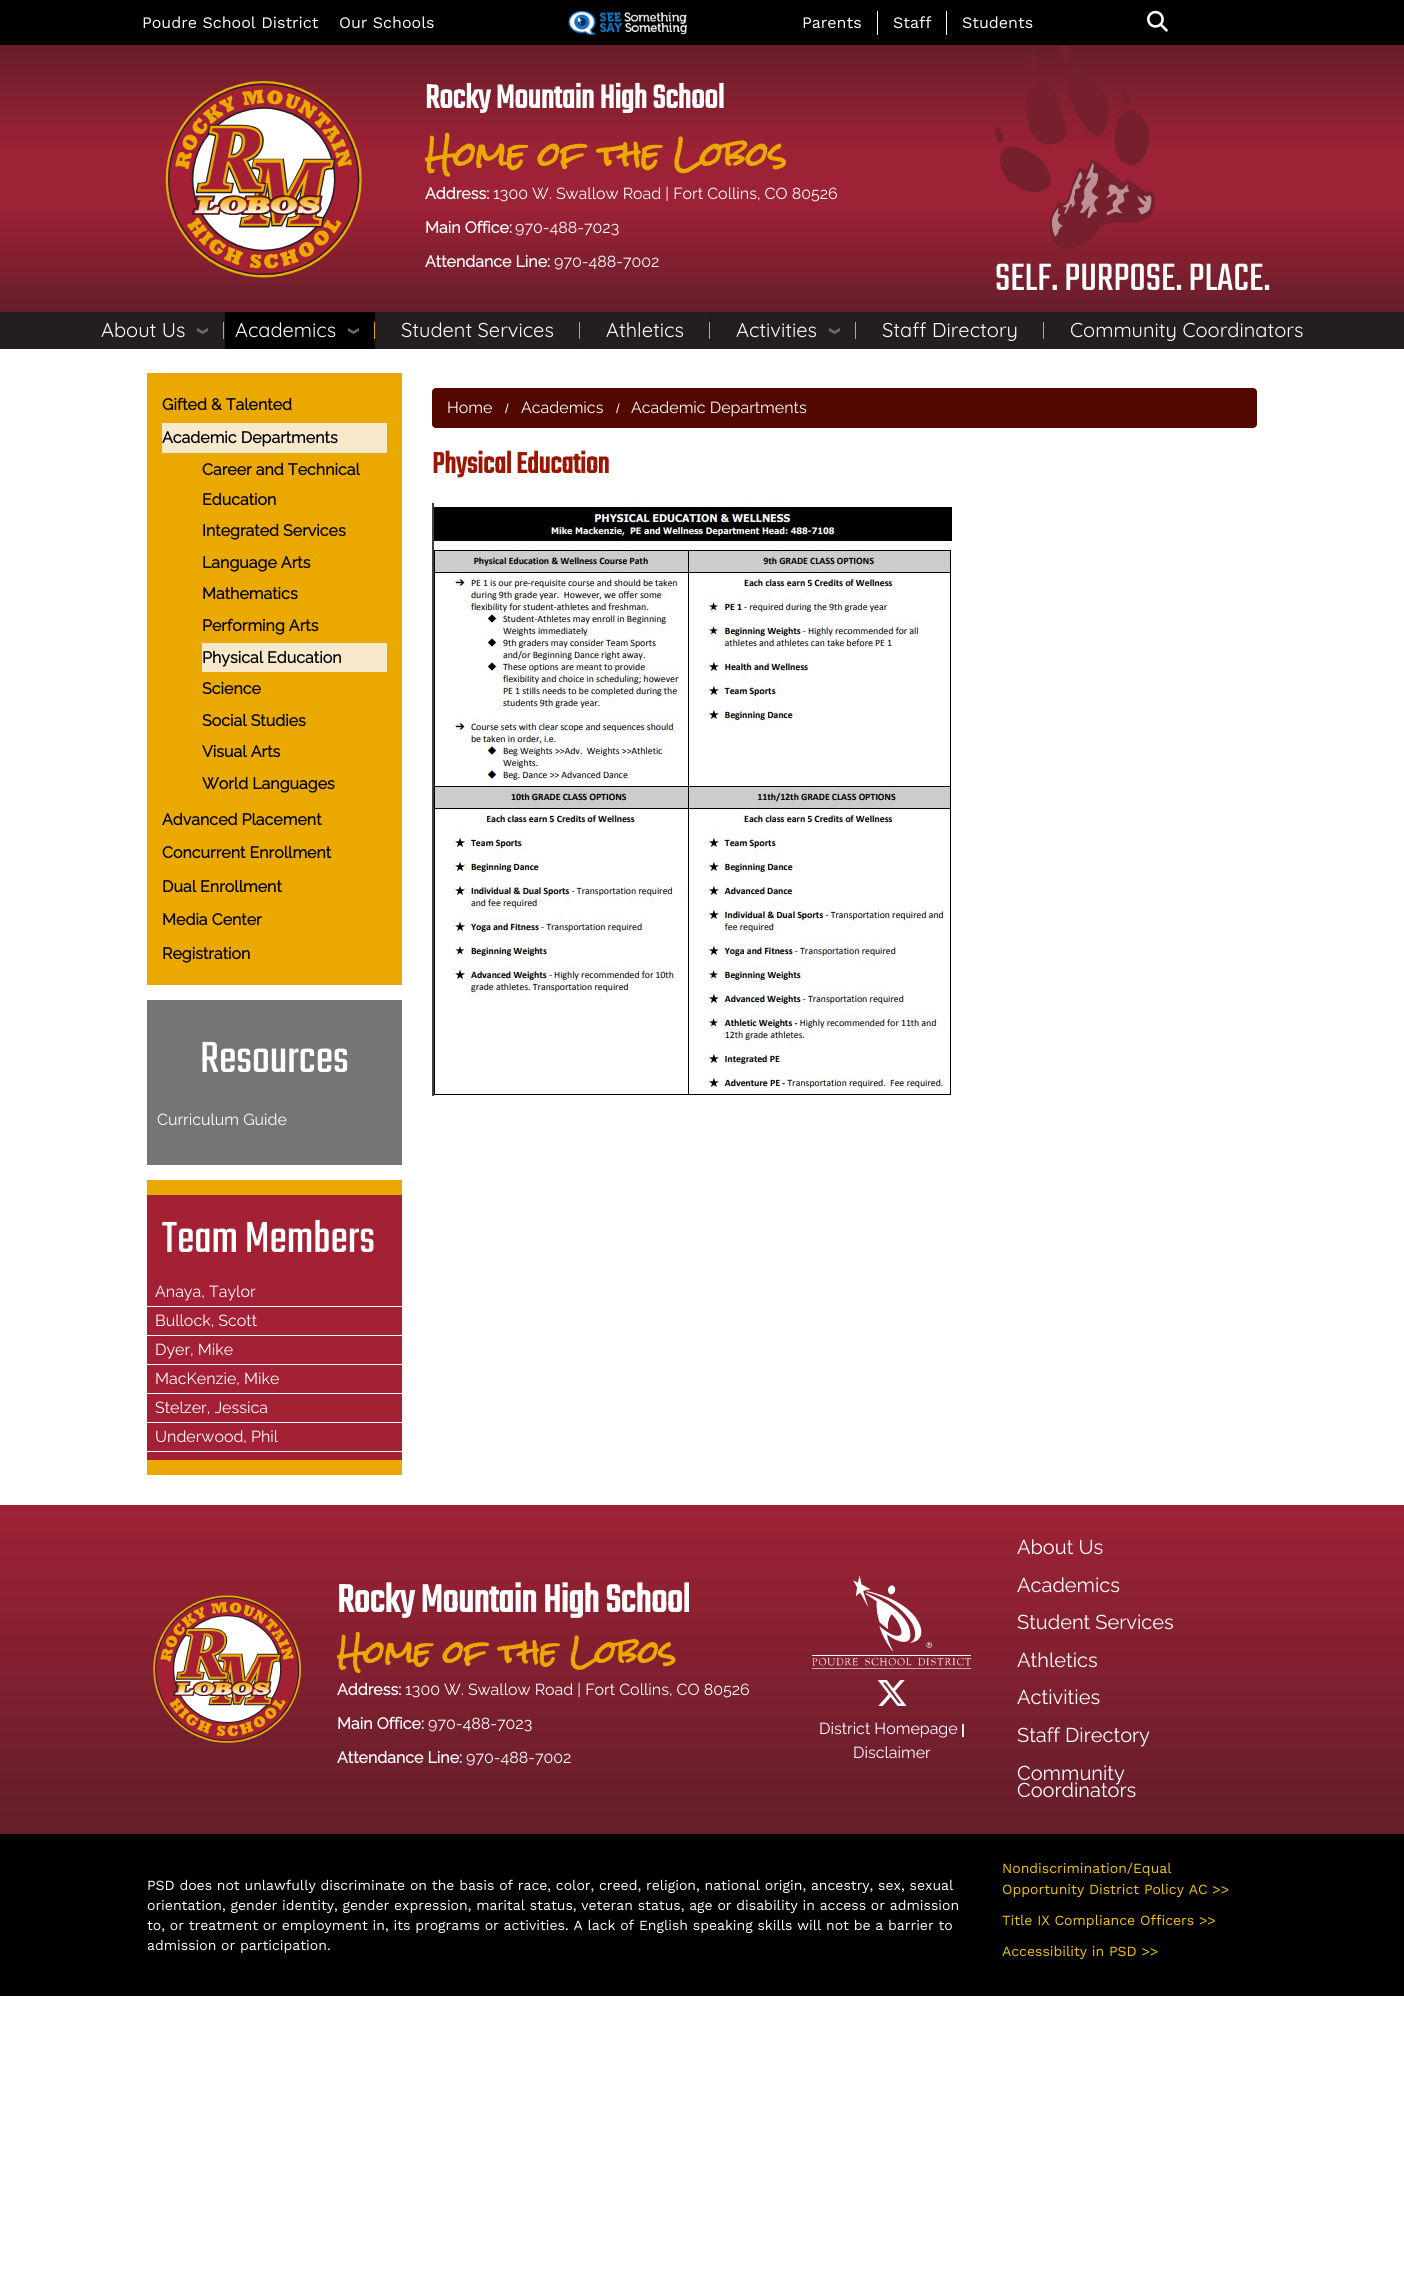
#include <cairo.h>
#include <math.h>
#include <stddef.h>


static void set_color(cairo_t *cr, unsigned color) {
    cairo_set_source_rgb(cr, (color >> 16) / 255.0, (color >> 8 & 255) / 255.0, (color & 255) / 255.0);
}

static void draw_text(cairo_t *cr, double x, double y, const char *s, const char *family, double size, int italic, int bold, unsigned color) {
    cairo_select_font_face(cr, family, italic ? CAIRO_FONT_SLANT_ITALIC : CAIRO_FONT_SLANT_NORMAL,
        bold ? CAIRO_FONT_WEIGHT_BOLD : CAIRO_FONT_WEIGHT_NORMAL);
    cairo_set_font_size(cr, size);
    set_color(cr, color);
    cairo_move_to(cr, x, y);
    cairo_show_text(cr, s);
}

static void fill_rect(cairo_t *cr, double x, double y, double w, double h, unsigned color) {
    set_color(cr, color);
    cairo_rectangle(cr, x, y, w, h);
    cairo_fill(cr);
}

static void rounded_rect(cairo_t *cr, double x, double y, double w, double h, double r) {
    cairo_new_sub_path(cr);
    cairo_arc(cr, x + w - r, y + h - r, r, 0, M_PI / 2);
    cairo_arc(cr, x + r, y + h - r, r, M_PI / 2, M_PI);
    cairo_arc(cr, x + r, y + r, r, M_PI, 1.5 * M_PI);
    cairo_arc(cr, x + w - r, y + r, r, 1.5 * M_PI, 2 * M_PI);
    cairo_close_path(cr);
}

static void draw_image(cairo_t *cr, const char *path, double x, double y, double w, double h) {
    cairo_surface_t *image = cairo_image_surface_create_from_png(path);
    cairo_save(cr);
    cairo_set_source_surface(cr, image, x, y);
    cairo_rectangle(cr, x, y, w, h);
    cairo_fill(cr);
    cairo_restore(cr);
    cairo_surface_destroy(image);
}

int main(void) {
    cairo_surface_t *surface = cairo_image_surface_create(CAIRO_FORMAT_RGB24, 1404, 2287);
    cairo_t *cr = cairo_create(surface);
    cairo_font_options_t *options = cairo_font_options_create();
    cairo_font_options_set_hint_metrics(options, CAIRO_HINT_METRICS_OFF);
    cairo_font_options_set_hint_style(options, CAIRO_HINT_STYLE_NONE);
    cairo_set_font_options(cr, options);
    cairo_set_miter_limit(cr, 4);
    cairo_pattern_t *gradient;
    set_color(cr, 0xFFFFFF);
    cairo_paint(cr);
    fill_rect(cr, 0, 0, 1404, 45, 0x000000);
    draw_text(cr, 142, 28, "Poudre School District", "Work Sans", 16, 0, 0, 0xFFFFFF);
    draw_text(cr, 339, 28, "Our Schools", "Work Sans", 16, 0, 0, 0xFFFFFF);
    draw_image(cr, "assets/img1.png", 568, 11, 120, 24);
    draw_text(cr, 802, 28, "Parents", "Work Sans", 16, 0, 0, 0xFFFFFF);
    fill_rect(cr, 946, 11, 1, 24, 0xFFFFFF);
    fill_rect(cr, 877, 11, 1, 24, 0xFFFFFF);
    draw_text(cr, 893, 28, "Staff", "Work Sans", 16, 0, 0, 0xFFFFFF);
    draw_text(cr, 962, 28, "Students", "Work Sans", 16, 0, 0, 0xFFFFFF);
    draw_image(cr, "assets/img2.png", 1147, 10, 21, 22);
    gradient = cairo_pattern_create_linear(702, 45, 702, 312);
    cairo_pattern_add_color_stop_rgba(gradient, 0, 0.404, 0.118, 0.169, 1);
    cairo_pattern_add_color_stop_rgba(gradient, 0.4, 0.616, 0.133, 0.208, 1);
    cairo_pattern_add_color_stop_rgba(gradient, 0.6, 0.616, 0.133, 0.208, 1);
    cairo_pattern_add_color_stop_rgba(gradient, 1, 0.404, 0.118, 0.169, 1);
    cairo_set_source(cr, gradient);
    cairo_pattern_destroy(gradient);
    cairo_rectangle(cr, 0, 45, 1404, 267);
    cairo_fill(cr);
    draw_image(cr, "assets/img3.png", 165, 81, 197, 197);
    draw_text(cr, 425, 108, "Rocky Mountain High School", "Teko", 36, 0, 1, 0xFFFFFF);
    draw_text(cr, 425, 167, "Home of the Lobos", "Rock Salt", 32, 0, 1, 0xEBA900);
    draw_text(cr, 425, 199, "Address:", "Raleway", 16, 0, 1, 0xFFFFFF);
    draw_text(cr, 493, 199, "1300 W. Swallow Road | Fort Collins, CO 80526", "Raleway Thin", 16, 0, 0, 0xFFFFFF);
    draw_text(cr, 425, 233, "Main Office:", "Raleway", 16, 0, 1, 0xFFFFFF);
    draw_text(cr, 515, 233, "970-488-7023", "Raleway Thin", 16, 0, 0, 0xFFFFFF);
    draw_text(cr, 425, 267, "Attendance Line:", "Raleway", 16, 0, 1, 0xFFFFFF);
    draw_text(cr, 554, 267, "970-488-7002", "Raleway Thin", 16, 0, 0, 0xFFFFFF);
    draw_image(cr, "assets/img4.png", 995, 45, 160, 204);
    draw_text(cr, 995, 290, "SELF. PURPOSE. PLACE.", "Teko Light", 42, 0, 0, 0xFFFFFF);
    fill_rect(cr, 0, 312, 1404, 37, 0x231F20);
    draw_text(cr, 101, 337, "About Us", "Quicksand", 20, 0, 0, 0xFFFFFF);
    draw_image(cr, "assets/img5.png", 197, 328, 11, 6);
    fill_rect(cr, 223, 322, 1, 17, 0xEBA900);
    fill_rect(cr, 225, 312, 150, 37, 0x000000);
    fill_rect(cr, 224, 312, 1, 37, 0x201C1D);
    draw_text(cr, 235, 337, "Academics", "Quicksand", 20, 0, 0, 0xFFFFFF);
    draw_image(cr, "assets/img6.png", 348, 328, 11, 6);
    fill_rect(cr, 374, 322, 1, 17, 0xEBA900);
    fill_rect(cr, 375, 312, 1, 37, 0x201C1D);
    draw_text(cr, 401, 337, "Student Services", "Quicksand", 20, 0, 0, 0xFFFFFF);
    fill_rect(cr, 579, 322, 1, 17, 0xEBA900);
    fill_rect(cr, 580, 312, 1, 37, 0x201C1D);
    draw_text(cr, 606, 337, "Athletics", "Quicksand", 20, 0, 0, 0xFFFFFF);
    fill_rect(cr, 709, 322, 1, 17, 0xEBA900);
    fill_rect(cr, 710, 312, 1, 37, 0x201C1D);
    draw_text(cr, 736, 337, "Activities", "Quicksand", 20, 0, 0, 0xFFFFFF);
    draw_image(cr, "assets/img5.png", 829, 328, 11, 6);
    fill_rect(cr, 855, 322, 1, 17, 0xEBA900);
    fill_rect(cr, 856, 312, 1, 37, 0x201C1D);
    draw_text(cr, 882, 337, "Staff Directory", "Quicksand", 20, 0, 0, 0xFFFFFF);
    fill_rect(cr, 1043, 322, 1, 17, 0xEBA900);
    fill_rect(cr, 1044, 312, 1, 37, 0x201C1D);
    draw_text(cr, 1070, 337, "Community Coordinators", "Quicksand", 20, 0, 0, 0xFFFFFF);
    fill_rect(cr, 147, 373, 255, 612, 0xEBA900);
    draw_text(cr, 162, 410, "Gifted & Talented", "Raleway", 16, 0, 1, 0x000000);
    fill_rect(cr, 162, 423, 225, 30, 0xF8E8CC);
    draw_text(cr, 162, 443, "Academic Departments", "Raleway", 16, 0, 1, 0x000000);
    draw_text(cr, 202, 475, "Career and Technical", "Raleway", 16, 0, 1, 0x000000);
    draw_text(cr, 202, 505, "Education", "Raleway", 16, 0, 1, 0x000000);
    draw_text(cr, 202, 536, "Integrated Services", "Raleway", 16, 0, 1, 0x000000);
    draw_text(cr, 202, 568, "Language Arts", "Raleway", 16, 0, 1, 0x000000);
    draw_text(cr, 202, 599, "Mathematics", "Raleway", 16, 0, 1, 0x000000);
    draw_text(cr, 202, 631, "Performing Arts", "Raleway", 16, 0, 1, 0x000000);
    fill_rect(cr, 202, 643, 185, 29, 0xF8E8CC);
    draw_text(cr, 202, 663, "Physical Education", "Raleway", 16, 0, 1, 0x000000);
    draw_text(cr, 202, 694, "Science", "Raleway", 16, 0, 1, 0x000000);
    draw_text(cr, 202, 726, "Social Studies", "Raleway", 16, 0, 1, 0x000000);
    draw_text(cr, 202, 757, "Visual Arts", "Raleway", 16, 0, 1, 0x000000);
    draw_text(cr, 202, 789, "World Languages", "Raleway", 16, 0, 1, 0x000000);
    draw_text(cr, 162, 825, "Advanced Placement", "Raleway", 16, 0, 1, 0x000000);
    draw_text(cr, 162, 858, "Concurrent Enrollment", "Raleway", 16, 0, 1, 0x000000);
    draw_text(cr, 162, 892, "Dual Enrollment", "Raleway", 16, 0, 1, 0x000000);
    draw_text(cr, 162, 925, "Media Center", "Raleway", 16, 0, 1, 0x000000);
    draw_text(cr, 162, 959, "Registration", "Raleway", 16, 0, 1, 0x000000);
    fill_rect(cr, 147, 1000, 255, 165, 0x757575);
    draw_text(cr, 200, 1072, "Resources", "Teko Light", 48, 0, 0, 0xFFFFFF);
    draw_text(cr, 157, 1125, "Curriculum Guide", "Raleway Thin", 16, 0, 0, 0xFFFFFF);
    fill_rect(cr, 147, 1180, 255, 295, 0xEBA900);
    fill_rect(cr, 147, 1195, 255, 265, 0xA32035);
    draw_text(cr, 162, 1252, "Team Members", "Teko Light", 48, 0, 0, 0xFFFFFF);
    fill_rect(cr, 147, 1306, 255, 1, 0xFFFFFF);
    draw_text(cr, 155, 1297, "Anaya, Taylor", "Raleway Thin", 16, 0, 0, 0xFFFFFF);
    fill_rect(cr, 147, 1335, 255, 1, 0xFFFFFF);
    draw_text(cr, 155, 1326, "Bullock, Scott", "Raleway Thin", 16, 0, 0, 0xFFFFFF);
    fill_rect(cr, 147, 1364, 255, 1, 0xFFFFFF);
    draw_text(cr, 155, 1355, "Dyer, Mike", "Raleway Thin", 16, 0, 0, 0xFFFFFF);
    fill_rect(cr, 147, 1393, 255, 1, 0xFFFFFF);
    draw_text(cr, 155, 1384, "MacKenzie, Mike", "Raleway Thin", 16, 0, 0, 0xFFFFFF);
    fill_rect(cr, 147, 1422, 255, 1, 0xFFFFFF);
    draw_text(cr, 155, 1413, "Stelzer, Jessica", "Raleway Thin", 16, 0, 0, 0xFFFFFF);
    fill_rect(cr, 147, 1451, 255, 1, 0xFFFFFF);
    draw_text(cr, 155, 1442, "Underwood, Phil", "Raleway Thin", 16, 0, 0, 0xFFFFFF);
    set_color(cr, 0x520800);
    rounded_rect(cr, 432, 388, 825, 40, 4);
    cairo_fill(cr);
    draw_text(cr, 447, 413, "Home", "Raleway Thin", 16, 0, 0, 0xFFFFFF);
    draw_text(cr, 505, 413, "/", "Liberation Sans", 13, 0, 0, 0xFFFFFF);
    draw_text(cr, 521, 413, "Academics", "Raleway Thin", 16, 0, 0, 0xFFFFFF);
    draw_text(cr, 616, 413, "/", "Liberation Sans", 13, 0, 0, 0xFFFFFF);
    draw_text(cr, 631, 413, "Academic Departments", "Raleway Thin", 16, 0, 0, 0xFFFFFF);
    draw_text(cr, 432, 473, "Physical Education", "Teko", 32, 0, 1, 0x991700);
    draw_image(cr, "assets/img7.png", 432, 503, 520, 593);
    gradient = cairo_pattern_create_linear(702, 1505, 702, 1834);
    cairo_pattern_add_color_stop_rgba(gradient, 0.01, 0.616, 0.133, 0.208, 1);
    cairo_pattern_add_color_stop_rgba(gradient, 0.94, 0.404, 0.118, 0.169, 1);
    cairo_set_source(cr, gradient);
    cairo_pattern_destroy(gradient);
    cairo_rectangle(cr, 0, 1505, 1404, 329);
    cairo_fill(cr);
    draw_image(cr, "assets/img8.png", 153, 1595, 148, 148);
    draw_text(cr, 337, 1612, "Rocky Mountain High School", "Teko", 42.5, 0, 1, 0xFFFFFF);
    draw_text(cr, 337, 1664, "Home of the Lobos", "Rock Salt", 30, 0, 1, 0xEBA900);
    draw_text(cr, 337, 1695, "Address:", "Raleway", 16, 0, 1, 0xFFFFFF);
    draw_text(cr, 405, 1695, "1300 W. Swallow Road | Fort Collins, CO 80526", "Raleway Thin", 16, 0, 0, 0xFFFFFF);
    draw_text(cr, 337, 1729, "Main Office:", "Raleway", 16, 0, 1, 0xFFFFFF);
    draw_text(cr, 428, 1729, "970-488-7023", "Raleway Thin", 16, 0, 0, 0xFFFFFF);
    draw_text(cr, 337, 1763, "Attendance Line:", "Raleway", 16, 0, 1, 0xFFFFFF);
    draw_text(cr, 466, 1763, "970-488-7002", "Raleway Thin", 16, 0, 0, 0xFFFFFF);
    draw_image(cr, "assets/img9.png", 812, 1575, 160, 94);
    draw_image(cr, "assets/img10.png", 877, 1680, 30, 26);
    draw_text(cr, 819, 1734, "District Homepage", "Raleway Thin", 16, 0, 0, 0xFFFFFF);
    draw_text(cr, 961, 1734, "|", "Liberation Sans", 14, 0, 1, 0xFFFFFF);
    draw_text(cr, 853, 1758, "Disclaimer", "Raleway Thin", 16, 0, 0, 0xFFFFFF);
    draw_text(cr, 1017, 1554, "About Us", "Raleway Thin", 20, 0, 0, 0xFFFFFF);
    draw_text(cr, 1017, 1592, "Academics", "Raleway Thin", 20, 0, 0, 0xFFFFFF);
    draw_text(cr, 1017, 1629, "Student Services", "Raleway Thin", 20, 0, 0, 0xFFFFFF);
    draw_text(cr, 1017, 1667, "Athletics", "Raleway Thin", 20, 0, 0, 0xFFFFFF);
    draw_text(cr, 1017, 1704, "Activities", "Raleway Thin", 20, 0, 0, 0xFFFFFF);
    draw_text(cr, 1017, 1742, "Staff Directory", "Raleway Thin", 20, 0, 0, 0xFFFFFF);
    draw_text(cr, 1017, 1780, "Community", "Raleway Thin", 20, 0, 0, 0xFFFFFF);
    draw_text(cr, 1017, 1797, "Coordinators", "Raleway Thin", 20, 0, 0, 0xFFFFFF);
    fill_rect(cr, 0, 1834, 1404, 162, 0x000000);
    draw_text(cr, 147, 1890, "PSD does not unlawfully discriminate on the basis of race, color, creed, religion, national origin, ancestry, sex, sexual", "Work Sans", 14, 0, 0, 0xFFFFFF);
    draw_text(cr, 147, 1910, "orientation, gender identity, gender expression, marital status, veteran status, age or disability in access or admission", "Work Sans", 14, 0, 0, 0xFFFFFF);
    draw_text(cr, 147, 1930, "to, or treatment or employment in, its programs or activities. A lack of English speaking skills will not be a barrier to", "Work Sans", 14, 0, 0, 0xFFFFFF);
    draw_text(cr, 147, 1950, "admission or participation.", "Work Sans", 14, 0, 0, 0xFFFFFF);
    draw_text(cr, 1002, 1873, "Nondiscrimination/Equal", "Work Sans", 14, 0, 0, 0xF1C40F);
    draw_text(cr, 1002, 1894, "Opportunity District Policy AC >>", "Work Sans", 14, 0, 0, 0xF1C40F);
    draw_text(cr, 1002, 1925, "Title IX Compliance Officers >>", "Work Sans", 14, 0, 0, 0xF1C40F);
    draw_text(cr, 1002, 1956, "Accessibility in PSD >>", "Work Sans", 14, 0, 0, 0xF1C40F);
    cairo_surface_write_to_png(surface, "output.png");
    cairo_font_options_destroy(options);
    cairo_destroy(cr);
    cairo_surface_destroy(surface);
    return 0;
}
